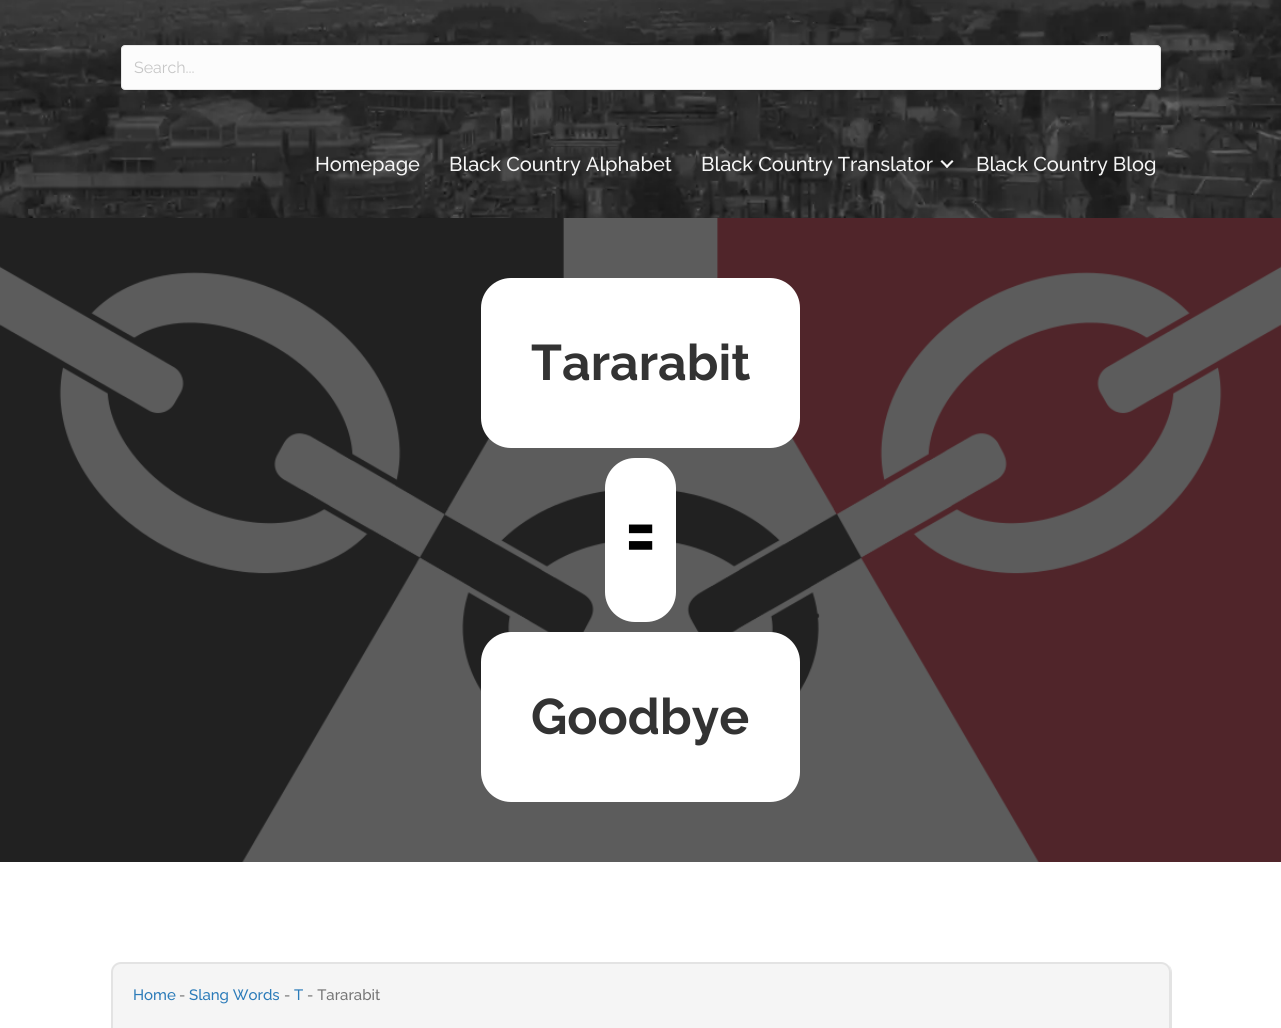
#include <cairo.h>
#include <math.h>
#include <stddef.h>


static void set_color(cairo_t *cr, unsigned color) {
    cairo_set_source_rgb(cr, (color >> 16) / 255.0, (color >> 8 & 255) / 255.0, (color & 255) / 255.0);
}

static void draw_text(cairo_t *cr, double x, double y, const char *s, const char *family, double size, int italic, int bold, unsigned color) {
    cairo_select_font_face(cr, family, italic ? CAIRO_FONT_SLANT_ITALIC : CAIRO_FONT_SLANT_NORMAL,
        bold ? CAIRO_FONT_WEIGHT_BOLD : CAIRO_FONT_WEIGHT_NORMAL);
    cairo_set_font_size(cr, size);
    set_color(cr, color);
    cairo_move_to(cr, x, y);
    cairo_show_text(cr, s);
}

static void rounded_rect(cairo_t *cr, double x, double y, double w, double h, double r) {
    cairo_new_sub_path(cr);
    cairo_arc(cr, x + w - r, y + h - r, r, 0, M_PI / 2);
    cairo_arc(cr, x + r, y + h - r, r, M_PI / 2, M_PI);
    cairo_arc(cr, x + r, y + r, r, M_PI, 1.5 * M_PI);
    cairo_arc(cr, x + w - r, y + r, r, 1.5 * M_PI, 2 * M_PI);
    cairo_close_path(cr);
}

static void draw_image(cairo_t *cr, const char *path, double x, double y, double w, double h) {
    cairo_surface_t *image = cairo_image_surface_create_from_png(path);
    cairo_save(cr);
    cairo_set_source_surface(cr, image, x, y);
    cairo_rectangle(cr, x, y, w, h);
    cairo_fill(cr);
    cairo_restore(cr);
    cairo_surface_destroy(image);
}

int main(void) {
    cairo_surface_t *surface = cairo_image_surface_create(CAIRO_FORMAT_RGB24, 1281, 1028);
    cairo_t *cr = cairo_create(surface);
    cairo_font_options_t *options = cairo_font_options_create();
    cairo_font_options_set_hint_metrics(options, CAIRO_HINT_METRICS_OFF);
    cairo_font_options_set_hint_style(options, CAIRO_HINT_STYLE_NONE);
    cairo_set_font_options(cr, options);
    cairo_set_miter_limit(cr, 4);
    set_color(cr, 0xFFFFFF);
    cairo_paint(cr);
    draw_image(cr, "assets/img1.png", 0, 0, 1281, 218);
    set_color(cr, 0xFCFCFC);
    rounded_rect(cr, 121.5, 45.5, 1039, 44, 3.5);
    cairo_fill_preserve(cr);
    set_color(cr, 0xE6E6E6);
    cairo_set_line_width(cr, 1);
    cairo_stroke(cr);
    draw_text(cr, 134, 73, "Search...", "Raleway", 16, 0, 0, 0xC6C6C6);
    draw_text(cr, 315, 171, "Homepage", "Raleway Medium", 20, 0, 0, 0xF5F5F5);
    draw_text(cr, 449, 171, "Black Country Alphabet", "Raleway Medium", 20, 0, 0, 0xF5F5F5);
    draw_text(cr, 701, 171, "Black Country Translator", "Raleway Medium", 20, 0, 0, 0xF5F5F5);
    cairo_new_path(cr);
    cairo_move_to(cr, 952, 160);
    cairo_line_to(cr, 953.5, 161.5);
    cairo_line_to(cr, 947, 168);
    cairo_line_to(cr, 945.5, 166.5);
    cairo_close_path(cr);
    cairo_fill(cr);
    cairo_new_path(cr);
    cairo_move_to(cr, 942, 160);
    cairo_line_to(cr, 948.5, 166.5);
    cairo_line_to(cr, 947, 168);
    cairo_line_to(cr, 940.5, 161.5);
    cairo_close_path(cr);
    cairo_fill(cr);
    draw_text(cr, 976, 171, "Black Country Blog", "Raleway Medium", 20, 0, 0, 0xF5F5F5);
    draw_image(cr, "assets/img2.png", 0, 218, 1281, 644);
    set_color(cr, 0xFFFFFF);
    rounded_rect(cr, 481, 278, 319, 170, 30);
    cairo_fill(cr);
    draw_text(cr, 531, 380, "Tararabit", "Raleway", 50, 0, 1, 0x333333);
    set_color(cr, 0xFFFFFF);
    rounded_rect(cr, 605, 458, 71, 164, 30);
    cairo_fill(cr);
    draw_text(cr, 625, 557, "=", "Raleway Black", 72, 0, 0, 0x000000);
    set_color(cr, 0xFFFFFF);
    rounded_rect(cr, 481, 632, 319, 170, 30);
    cairo_fill(cr);
    draw_text(cr, 531, 734, "Goodbye", "Raleway", 50, 0, 1, 0x333333);
    set_color(cr, 0xE3E3E3);
    cairo_new_path(cr);
    cairo_move_to(cr, 114, 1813);
    cairo_curve_to(cr, 116, 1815, 119, 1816, 122, 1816);
    cairo_line_to(cr, 1162, 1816);
    cairo_curve_to(cr, 1168, 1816, 1172, 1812, 1172, 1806);
    cairo_line_to(cr, 1172, 973);
    cairo_curve_to(cr, 1172, 970, 1171, 967, 1169, 965);
    cairo_curve_to(cr, 1170, 967, 1171, 969, 1171, 972);
    cairo_line_to(cr, 1171, 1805);
    cairo_curve_to(cr, 1171, 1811, 1167, 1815, 1161, 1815);
    cairo_line_to(cr, 121, 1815);
    cairo_curve_to(cr, 118, 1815, 116, 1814, 114, 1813);
    cairo_close_path(cr);
    cairo_fill(cr);
    set_color(cr, 0xF5F5F5);
    rounded_rect(cr, 112, 963, 1058, 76, 9);
    cairo_fill_preserve(cr);
    set_color(cr, 0xE3E3E3);
    cairo_set_line_width(cr, 2);
    cairo_stroke(cr);
    draw_text(cr, 133, 1000, "Home", "Raleway Medium", 15, 0, 0, 0x2B7BB9);
    draw_text(cr, 179, 1000, "-", "Raleway Medium", 15, 0, 0, 0x757575);
    draw_text(cr, 189, 1000, "Slang Words", "Raleway Medium", 15, 0, 0, 0x2B7BB9);
    draw_text(cr, 284, 1000, "-", "Raleway Medium", 15, 0, 0, 0x757575);
    draw_text(cr, 294, 1000, "T", "Raleway Medium", 15, 0, 0, 0x2B7BB9);
    draw_text(cr, 307, 1000, "- Tararabit", "Raleway Medium", 15, 0, 0, 0x757575);
    cairo_surface_write_to_png(surface, "output.png");
    cairo_font_options_destroy(options);
    cairo_destroy(cr);
    cairo_surface_destroy(surface);
    return 0;
}
